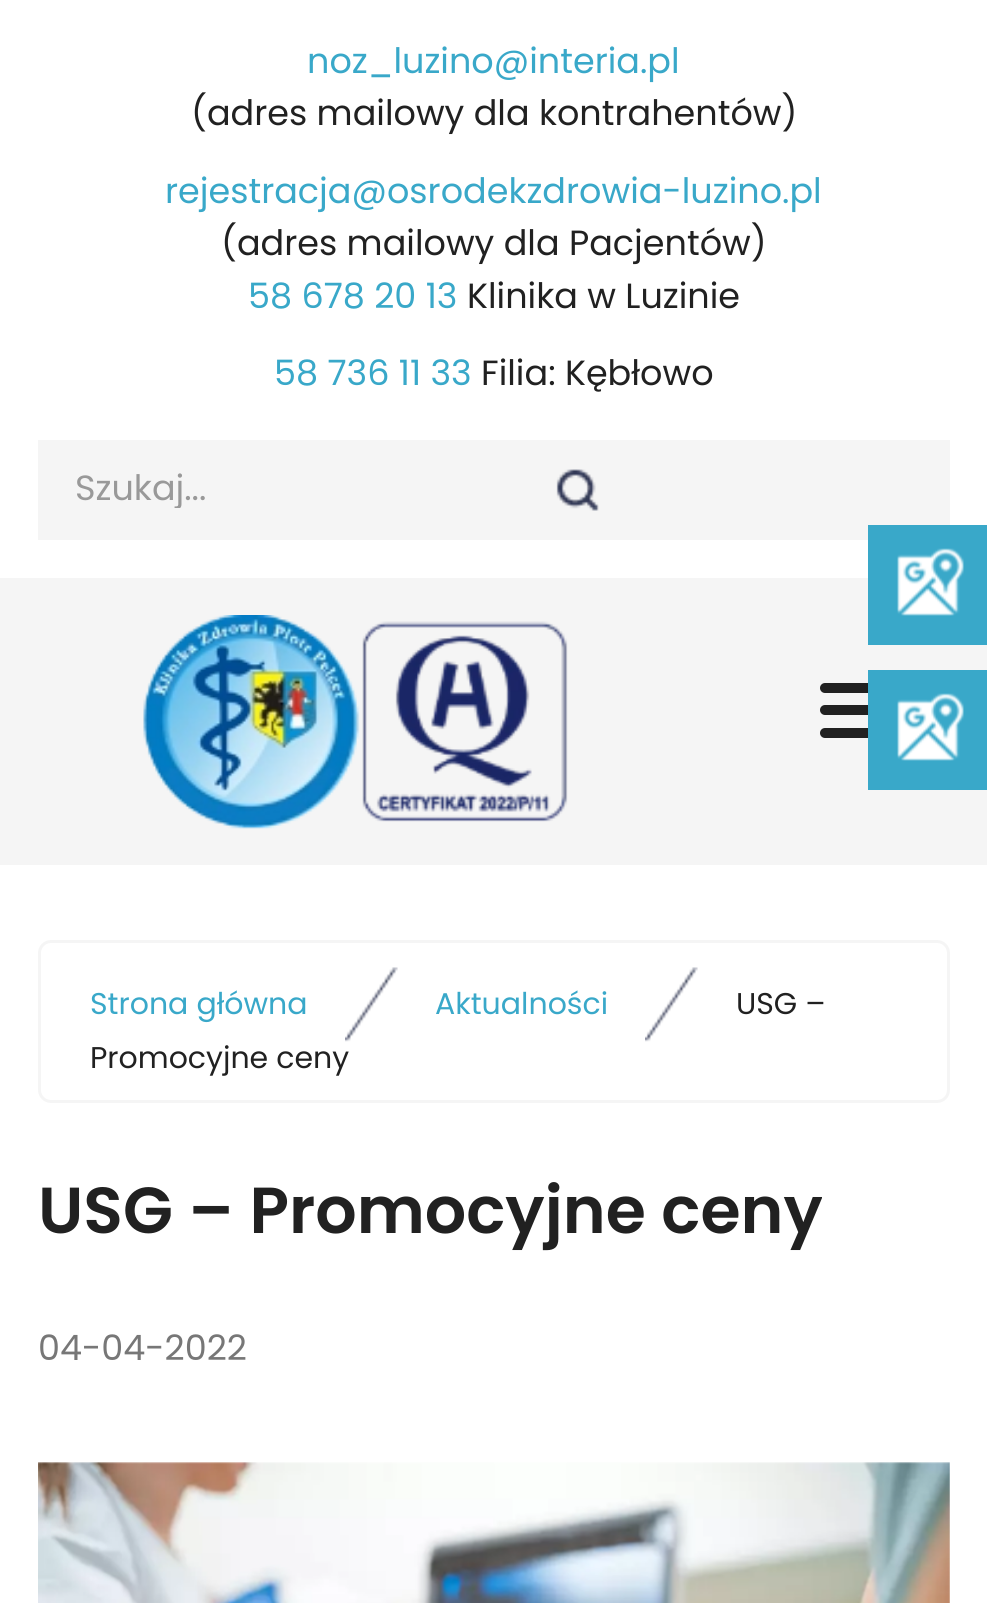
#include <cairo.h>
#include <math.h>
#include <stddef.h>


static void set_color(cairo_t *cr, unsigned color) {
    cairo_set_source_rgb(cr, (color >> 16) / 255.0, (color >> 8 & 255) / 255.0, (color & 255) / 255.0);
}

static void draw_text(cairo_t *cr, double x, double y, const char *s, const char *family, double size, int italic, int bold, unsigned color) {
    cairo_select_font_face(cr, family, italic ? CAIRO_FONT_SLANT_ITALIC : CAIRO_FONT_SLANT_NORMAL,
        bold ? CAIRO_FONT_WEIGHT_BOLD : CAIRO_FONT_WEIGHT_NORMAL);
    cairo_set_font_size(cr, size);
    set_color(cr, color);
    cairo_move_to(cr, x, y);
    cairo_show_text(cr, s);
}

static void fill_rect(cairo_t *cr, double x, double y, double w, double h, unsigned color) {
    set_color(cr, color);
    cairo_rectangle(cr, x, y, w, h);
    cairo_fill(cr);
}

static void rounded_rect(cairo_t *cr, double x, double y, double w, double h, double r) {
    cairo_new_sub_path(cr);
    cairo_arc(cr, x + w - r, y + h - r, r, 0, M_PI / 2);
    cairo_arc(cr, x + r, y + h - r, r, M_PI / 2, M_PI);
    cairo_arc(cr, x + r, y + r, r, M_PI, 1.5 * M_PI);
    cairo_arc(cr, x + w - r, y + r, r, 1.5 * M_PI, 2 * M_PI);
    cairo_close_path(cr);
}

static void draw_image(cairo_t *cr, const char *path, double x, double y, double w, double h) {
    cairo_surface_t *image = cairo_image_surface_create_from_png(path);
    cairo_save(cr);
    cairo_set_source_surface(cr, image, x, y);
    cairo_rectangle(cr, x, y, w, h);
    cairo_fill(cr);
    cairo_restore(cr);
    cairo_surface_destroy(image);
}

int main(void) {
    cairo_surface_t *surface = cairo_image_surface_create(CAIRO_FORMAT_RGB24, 987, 1603);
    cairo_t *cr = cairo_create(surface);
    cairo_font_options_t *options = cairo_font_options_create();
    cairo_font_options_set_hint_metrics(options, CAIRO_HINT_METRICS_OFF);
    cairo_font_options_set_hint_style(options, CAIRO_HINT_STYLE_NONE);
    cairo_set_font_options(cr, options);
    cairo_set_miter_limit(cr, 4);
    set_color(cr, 0xFFFFFF);
    cairo_paint(cr);
    draw_text(cr, 307, 73, "noz_luzino@interia.pl", "Poppins", 35, 0, 0, 0x39A8C9);
    draw_text(cr, 191, 125, "(adres mailowy dla kontrahentów)", "Poppins", 35, 0, 0, 0x212121);
    draw_text(cr, 165, 203, "rejestracja@osrodekzdrowia-luzino.pl", "Poppins", 35, 0, 0, 0x39A8C9);
    draw_text(cr, 221, 255, "(adres mailowy dla Pacjentów)", "Poppins", 35, 0, 0, 0x212121);
    draw_text(cr, 248, 308, "58 678 20 13", "Poppins", 35, 0, 0, 0x39A8C9);
    draw_text(cr, 467, 308, "Klinika w Luzinie", "Poppins", 35, 0, 0, 0x212121);
    draw_text(cr, 274, 385, "58 736 11 33", "Poppins", 35, 0, 0, 0x39A8C9);
    draw_text(cr, 481, 385, "Filia: Kębłowo", "Poppins", 35, 0, 0, 0x212121);
    fill_rect(cr, 38, 440, 912, 100, 0xF5F5F5);
    cairo_save(cr);
    cairo_rectangle(cr, 75, 473, 425, 35);
    cairo_clip(cr);
    draw_text(cr, 75, 500, "Szukaj...", "Poppins", 35, 0, 0, 0x999999);
    cairo_restore(cr);
    draw_image(cr, "assets/img1.png", 556, 469, 43, 42);
    fill_rect(cr, 0, 578, 987, 287, 0xF5F5F5);
    draw_image(cr, "assets/img2.png", 143, 615, 425, 214);
    set_color(cr, 0x212121);
    rounded_rect(cr, 820, 683, 100, 10, 5);
    cairo_fill(cr);
    rounded_rect(cr, 820, 705, 100, 10, 5);
    cairo_fill(cr);
    rounded_rect(cr, 820, 728, 100, 10, 5);
    cairo_fill(cr);
    fill_rect(cr, 868, 525, 119, 120, 0x39A8C9);
    draw_image(cr, "assets/img3.png", 897, 548, 67, 68);
    fill_rect(cr, 868, 670, 119, 120, 0x39A8C9);
    draw_image(cr, "assets/img3.png", 897, 693, 67, 68);
    rounded_rect(cr, 39.5, 941.5, 909, 160, 11.5);
    set_color(cr, 0xF5F5F5);
    cairo_set_line_width(cr, 3);
    cairo_stroke(cr);
    draw_text(cr, 90, 1014, "Strona główna", "Poppins", 30, 0, 0, 0x39A8C9);
    draw_image(cr, "assets/img4.png", 345, 967, 53, 75);
    draw_text(cr, 435, 1014, "Aktualności", "Poppins", 30, 0, 0, 0x39A8C9);
    draw_image(cr, "assets/img4.png", 645, 967, 53, 75);
    draw_text(cr, 736, 1014, "USG –", "Poppins", 30, 0, 0, 0x212121);
    draw_text(cr, 90, 1068, "Promocyjne ceny", "Poppins", 30, 0, 0, 0x212121);
    draw_text(cr, 38, 1233, "USG – Promocyjne ceny", "Poppins SemiBold", 65, 0, 0, 0x212121);
    draw_text(cr, 38, 1360, "04-04-2022", "Poppins", 35, 0, 0, 0x777777);
    draw_image(cr, "assets/img5.png", 38, 1462, 912, 141);
    cairo_surface_write_to_png(surface, "output.png");
    cairo_font_options_destroy(options);
    cairo_destroy(cr);
    cairo_surface_destroy(surface);
    return 0;
}
